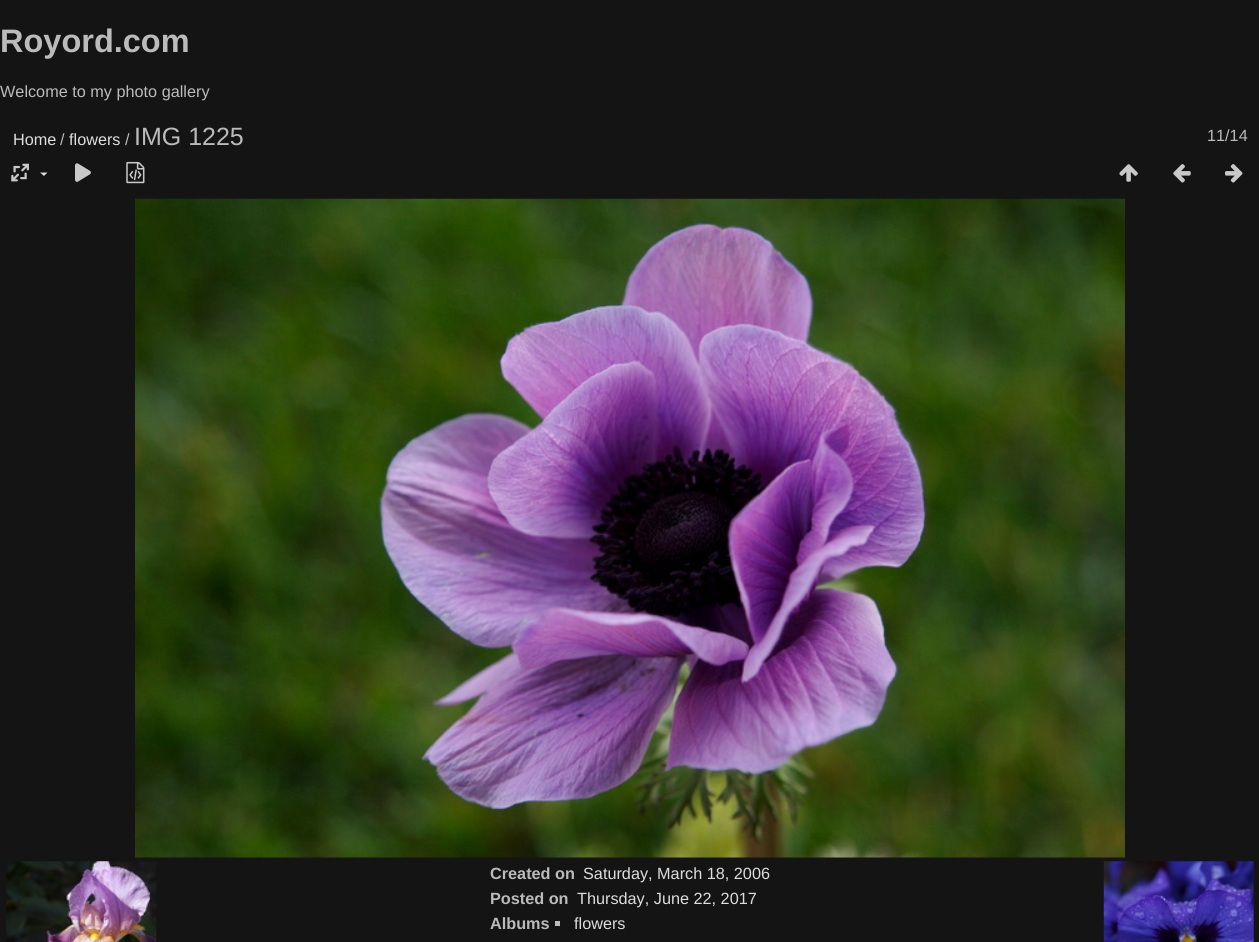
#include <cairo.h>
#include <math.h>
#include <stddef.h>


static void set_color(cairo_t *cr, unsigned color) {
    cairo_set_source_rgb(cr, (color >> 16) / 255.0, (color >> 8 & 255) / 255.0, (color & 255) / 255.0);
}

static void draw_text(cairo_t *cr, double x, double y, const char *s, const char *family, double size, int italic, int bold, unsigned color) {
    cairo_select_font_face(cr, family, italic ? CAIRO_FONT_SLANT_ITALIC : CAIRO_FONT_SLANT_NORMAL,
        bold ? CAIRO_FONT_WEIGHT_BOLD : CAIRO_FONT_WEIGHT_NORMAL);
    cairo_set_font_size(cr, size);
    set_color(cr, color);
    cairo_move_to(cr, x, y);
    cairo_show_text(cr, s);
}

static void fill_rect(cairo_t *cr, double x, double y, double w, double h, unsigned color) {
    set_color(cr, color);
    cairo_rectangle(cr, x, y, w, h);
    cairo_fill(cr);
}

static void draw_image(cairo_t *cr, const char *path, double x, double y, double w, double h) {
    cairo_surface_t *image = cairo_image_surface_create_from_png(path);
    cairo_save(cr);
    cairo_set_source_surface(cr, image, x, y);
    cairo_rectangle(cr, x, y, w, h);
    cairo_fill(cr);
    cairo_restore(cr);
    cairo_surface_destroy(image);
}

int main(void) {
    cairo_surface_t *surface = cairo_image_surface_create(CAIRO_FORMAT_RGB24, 1259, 942);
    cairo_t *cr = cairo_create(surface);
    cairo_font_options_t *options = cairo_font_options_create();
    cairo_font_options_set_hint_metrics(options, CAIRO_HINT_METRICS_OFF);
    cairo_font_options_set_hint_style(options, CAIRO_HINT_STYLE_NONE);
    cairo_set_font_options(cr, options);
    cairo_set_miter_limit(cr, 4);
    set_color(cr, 0x141414);
    cairo_paint(cr);
    draw_text(cr, 0, 52, "Royord.com", "Liberation Sans", 32.5, 0, 1, 0xBBBBBB);
    draw_text(cr, 0, 97, "Welcome to my photo gallery", "Liberation Sans", 16.25, 0, 0, 0xBBBBBB);
    draw_text(cr, 13, 145, "Home", "Liberation Sans", 16.25, 0, 0, 0xDDDDDD);
    draw_text(cr, 60, 145, "/", "Liberation Sans", 16.25, 0, 0, 0xBBBBBB);
    draw_text(cr, 69, 145, "flowers", "Liberation Sans", 16.25, 0, 0, 0xDDDDDD);
    draw_text(cr, 125, 145, "/", "Liberation Sans", 16.25, 0, 0, 0xBBBBBB);
    draw_text(cr, 134, 145, "IMG 1225", "Liberation Sans", 25, 0, 0, 0xBBBBBB);
    draw_text(cr, 1207, 141, "11/14", "Liberation Sans", 16.25, 0, 0, 0xBBBBBB);
    draw_image(cr, "assets/img1.png", 11, 163, 18, 19);
    set_color(cr, 0xDDDDDD);
    cairo_new_path(cr);
    cairo_move_to(cr, 40, 172.5);
    cairo_line_to(cr, 47.5, 172.5);
    cairo_line_to(cr, 44, 176);
    cairo_close_path(cr);
    cairo_fill(cr);
    draw_image(cr, "assets/img2.png", 75, 163, 16, 19);
    draw_image(cr, "assets/img3.png", 126, 161, 19, 23);
    draw_image(cr, "assets/img4.png", 1119, 164, 19, 18);
    draw_image(cr, "assets/img5.png", 1173, 164, 18, 19);
    draw_image(cr, "assets/img6.png", 1225, 164, 18, 19);
    draw_image(cr, "assets/img7.png", 135, 198, 990, 660);
    draw_image(cr, "assets/img8.png", 6, 861, 151, 81);
    draw_image(cr, "assets/img9.png", 1103, 861, 151, 81);
    draw_text(cr, 490, 879, "Created on", "Liberation Sans", 16.25, 0, 1, 0xBBBBBB);
    draw_text(cr, 583, 879, "Saturday, March 18, 2006", "Liberation Sans", 16.25, 0, 0, 0xDDDDDD);
    draw_text(cr, 490, 904, "Posted on", "Liberation Sans", 16.25, 0, 1, 0xBBBBBB);
    draw_text(cr, 577, 904, "Thursday, June 22, 2017", "Liberation Sans", 16.25, 0, 0, 0xDDDDDD);
    draw_text(cr, 490, 929, "Albums", "Liberation Sans", 16.25, 0, 1, 0xBBBBBB);
    fill_rect(cr, 555, 921, 5, 5, 0xBBBBBB);
    draw_text(cr, 574, 929, "flowers", "Liberation Sans", 16.25, 0, 0, 0xDDDDDD);
    cairo_surface_write_to_png(surface, "output.png");
    cairo_font_options_destroy(options);
    cairo_destroy(cr);
    cairo_surface_destroy(surface);
    return 0;
}
